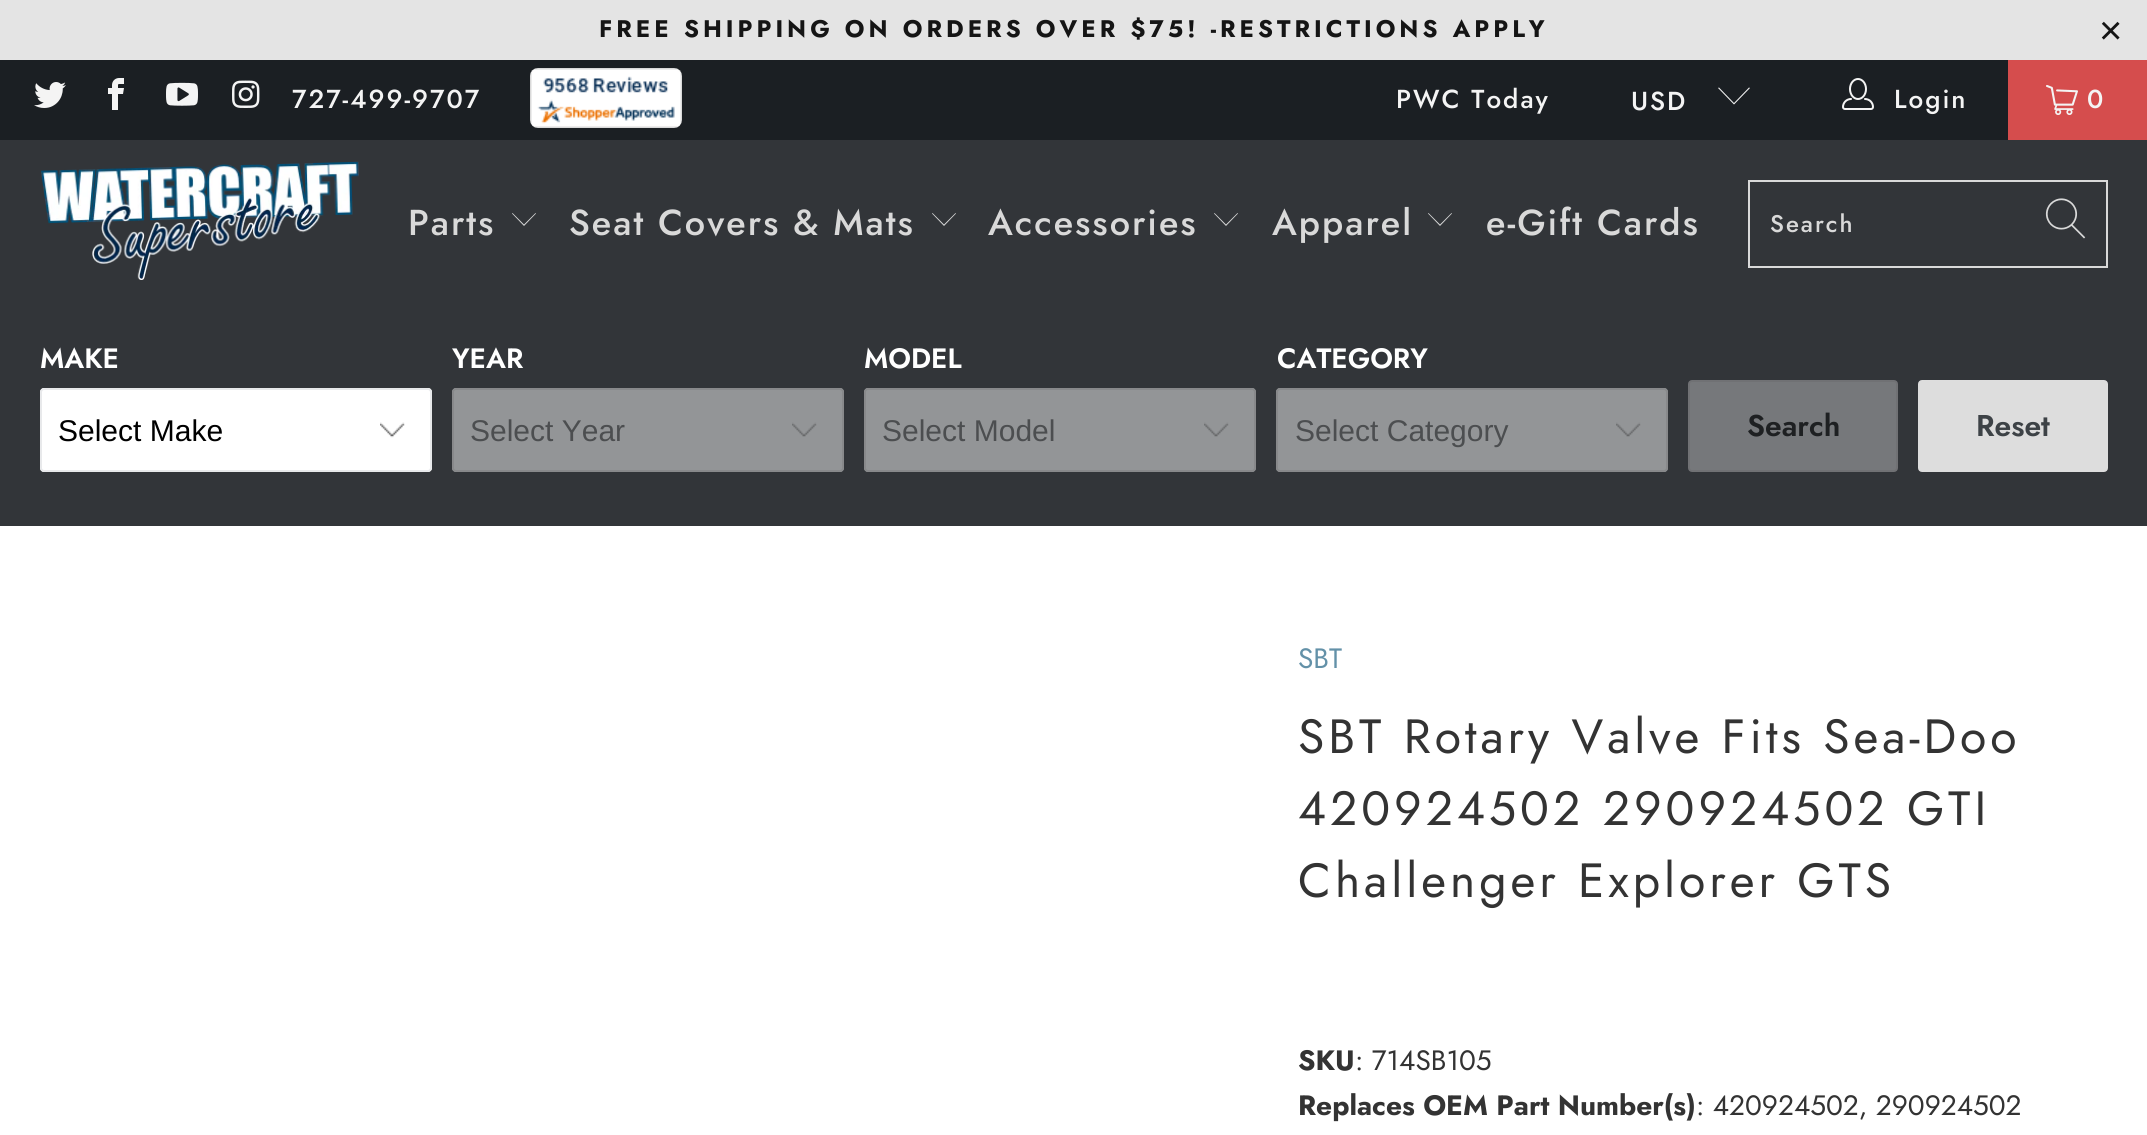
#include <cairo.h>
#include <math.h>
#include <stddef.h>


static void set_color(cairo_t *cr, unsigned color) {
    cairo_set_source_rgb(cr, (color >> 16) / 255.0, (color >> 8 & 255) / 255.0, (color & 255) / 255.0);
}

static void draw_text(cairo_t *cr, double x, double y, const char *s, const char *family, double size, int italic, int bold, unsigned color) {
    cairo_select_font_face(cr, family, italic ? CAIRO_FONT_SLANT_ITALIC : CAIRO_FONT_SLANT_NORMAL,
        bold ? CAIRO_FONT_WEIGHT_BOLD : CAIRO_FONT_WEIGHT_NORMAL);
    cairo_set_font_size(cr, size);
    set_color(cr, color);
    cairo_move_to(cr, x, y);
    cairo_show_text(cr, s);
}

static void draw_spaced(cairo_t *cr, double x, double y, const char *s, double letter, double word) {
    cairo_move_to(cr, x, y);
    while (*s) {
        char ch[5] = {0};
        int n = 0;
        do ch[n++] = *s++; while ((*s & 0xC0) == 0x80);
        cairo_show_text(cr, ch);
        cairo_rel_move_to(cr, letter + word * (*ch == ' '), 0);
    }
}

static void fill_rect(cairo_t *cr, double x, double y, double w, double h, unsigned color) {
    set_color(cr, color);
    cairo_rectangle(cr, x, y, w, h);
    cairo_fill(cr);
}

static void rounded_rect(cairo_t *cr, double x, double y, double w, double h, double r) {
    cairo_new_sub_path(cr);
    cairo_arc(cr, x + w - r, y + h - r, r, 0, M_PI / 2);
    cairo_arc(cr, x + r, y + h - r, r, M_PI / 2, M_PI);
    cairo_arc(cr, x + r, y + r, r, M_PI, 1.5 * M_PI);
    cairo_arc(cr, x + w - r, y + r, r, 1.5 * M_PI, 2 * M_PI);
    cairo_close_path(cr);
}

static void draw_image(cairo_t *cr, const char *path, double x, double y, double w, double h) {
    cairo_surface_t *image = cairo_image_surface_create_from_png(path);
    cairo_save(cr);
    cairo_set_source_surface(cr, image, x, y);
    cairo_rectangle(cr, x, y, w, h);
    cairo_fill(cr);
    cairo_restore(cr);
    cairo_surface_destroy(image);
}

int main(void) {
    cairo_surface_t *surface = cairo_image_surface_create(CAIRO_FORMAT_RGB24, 2147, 1135);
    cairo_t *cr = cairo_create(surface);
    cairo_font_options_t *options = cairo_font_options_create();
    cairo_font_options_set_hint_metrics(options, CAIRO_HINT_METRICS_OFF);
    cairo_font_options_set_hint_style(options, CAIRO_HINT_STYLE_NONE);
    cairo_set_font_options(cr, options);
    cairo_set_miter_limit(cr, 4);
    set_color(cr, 0xFFFFFF);
    cairo_paint(cr);
    fill_rect(cr, 0, 0, 2147, 60, 0xE4E4E4);
    cairo_select_font_face(cr, "Jost", CAIRO_FONT_SLANT_NORMAL, CAIRO_FONT_WEIGHT_BOLD);
    cairo_set_font_size(cr, 24);
    set_color(cr, 0x151515);
    draw_spaced(cr, 599, 37, "FREE SHIPPING ON ORDERS OVER $75! -RESTRICTIONS APPLY", 4, 0);
    cairo_select_font_face(cr, "Liberation Sans", CAIRO_FONT_SLANT_NORMAL, CAIRO_FONT_WEIGHT_NORMAL);
    cairo_set_font_size(cr, 40);
    draw_spaced(cr, 2099, 44, "×", 4, 0);
    fill_rect(cr, 0, 60, 2008, 80, 0x1B1F23);
    draw_image(cr, "assets/img1.png", 34, 82, 32, 26);
    draw_image(cr, "assets/img2.png", 108, 78, 16, 32);
    draw_image(cr, "assets/img3.png", 166, 82, 32, 24);
    draw_image(cr, "assets/img4.png", 232, 80, 28, 28);
    cairo_select_font_face(cr, "Jost Medium", CAIRO_FONT_SLANT_NORMAL, CAIRO_FONT_WEIGHT_NORMAL);
    cairo_set_font_size(cr, 26);
    set_color(cr, 0xF4F4F4);
    draw_spaced(cr, 292, 108, "727-499-9707", 2, 0);
    draw_image(cr, "assets/img5.png", 530, 68, 152, 60);
    draw_spaced(cr, 1396, 108, "PWC Today", 2, 0);
    draw_spaced(cr, 1631, 110, "USD", 2, 0);
    cairo_new_path(cr);
    cairo_move_to(cr, 1734, 104.5);
    cairo_line_to(cr, 1718, 88);
    cairo_line_to(cr, 1719, 87.5);
    cairo_line_to(cr, 1734, 103);
    cairo_line_to(cr, 1749, 87.5);
    cairo_line_to(cr, 1750, 88);
    cairo_close_path(cr);
    cairo_fill(cr);
    draw_image(cr, "assets/img6.png", 1842, 78, 32, 32);
    draw_spaced(cr, 1894, 108, "Login", 2, 0);
    fill_rect(cr, 2008, 60, 139, 80, 0xD54D4D);
    draw_image(cr, "assets/img7.png", 2046, 85, 32, 30);
    set_color(cr, 0xF4F4F4);
    draw_spaced(cr, 2087, 108, "0", 2, 0);
    fill_rect(cr, 0, 140, 2147, 386, 0x323539);
    draw_image(cr, "assets/img8.png", 41, 161, 318, 119);
    cairo_set_font_size(cr, 36);
    set_color(cr, 0xD9D9D9);
    draw_spaced(cr, 408, 235, "Parts", 2, 0);
    cairo_new_path(cr);
    cairo_move_to(cr, 524, 226);
    cairo_line_to(cr, 512, 213.5);
    cairo_line_to(cr, 512.5, 213);
    cairo_line_to(cr, 524, 224.5);
    cairo_line_to(cr, 535.5, 213);
    cairo_line_to(cr, 536, 213.5);
    cairo_close_path(cr);
    cairo_fill(cr);
    draw_spaced(cr, 569, 235, "Seat Covers & Mats", 2, 0);
    cairo_new_path(cr);
    cairo_move_to(cr, 944, 226);
    cairo_line_to(cr, 932, 213.5);
    cairo_line_to(cr, 932.5, 213);
    cairo_line_to(cr, 944, 224.5);
    cairo_line_to(cr, 955.5, 213);
    cairo_line_to(cr, 956, 213.5);
    cairo_close_path(cr);
    cairo_fill(cr);
    draw_spaced(cr, 988, 235, "Accessories", 2, 0);
    cairo_new_path(cr);
    cairo_move_to(cr, 1226, 226);
    cairo_line_to(cr, 1214, 213.5);
    cairo_line_to(cr, 1214.5, 213);
    cairo_line_to(cr, 1226, 224.5);
    cairo_line_to(cr, 1237.5, 213);
    cairo_line_to(cr, 1238, 213.5);
    cairo_close_path(cr);
    cairo_fill(cr);
    draw_spaced(cr, 1272, 235, "Apparel", 2, 0);
    cairo_new_path(cr);
    cairo_move_to(cr, 1440, 226);
    cairo_line_to(cr, 1428, 213.5);
    cairo_line_to(cr, 1428.5, 213);
    cairo_line_to(cr, 1440, 224.5);
    cairo_line_to(cr, 1451.5, 213);
    cairo_line_to(cr, 1452, 213.5);
    cairo_close_path(cr);
    cairo_fill(cr);
    draw_spaced(cr, 1486, 235, "e-Gift Cards", 2, 0);
    cairo_rectangle(cr, 1749, 181, 358, 86);
    cairo_stroke(cr);
    cairo_set_font_size(cr, 24);
    draw_spaced(cr, 1770, 232, "Search", 2, 0);
    draw_image(cr, "assets/img9.png", 2045, 198, 41, 41);
    draw_text(cr, 40, 368, "MAKE", "Jost SemiBold", 28, 0, 0, 0xFFFFFF);
    rounded_rect(cr, 40, 388, 392, 84, 4);
    cairo_fill(cr);
    draw_image(cr, "assets/img10.png", 380, 422, 25, 16);
    rounded_rect(cr, 41, 389, 390, 82, 3);
    set_color(cr, 0xE8E9EB);
    cairo_stroke(cr);
    draw_text(cr, 58, 441, "Select Make", "Liberation Sans", 30, 0, 0, 0x000000);
    draw_text(cr, 452, 368, "YEAR", "Jost SemiBold", 28, 0, 0, 0xFFFFFF);
    set_color(cr, 0x939597);
    rounded_rect(cr, 452, 388, 392, 84, 4);
    cairo_fill(cr);
    draw_image(cr, "assets/img11.png", 792, 422, 25, 15);
    rounded_rect(cr, 453, 389, 390, 82, 3);
    set_color(cr, 0x88898B);
    cairo_stroke(cr);
    draw_text(cr, 470, 441, "Select Year", "Liberation Sans", 30, 0, 0, 0x4C4E50);
    draw_text(cr, 864, 368, "MODEL", "Jost SemiBold", 28, 0, 0, 0xFFFFFF);
    set_color(cr, 0x939597);
    rounded_rect(cr, 864, 388, 392, 84, 4);
    cairo_fill(cr);
    draw_image(cr, "assets/img11.png", 1204, 422, 25, 15);
    rounded_rect(cr, 865, 389, 390, 82, 3);
    set_color(cr, 0x88898B);
    cairo_stroke(cr);
    draw_text(cr, 882, 441, "Select Model", "Liberation Sans", 30, 0, 0, 0x4C4E50);
    draw_text(cr, 1277, 368, "CATEGORY", "Jost SemiBold", 28, 0, 0, 0xFFFFFF);
    set_color(cr, 0x939597);
    rounded_rect(cr, 1276, 388, 392, 84, 4);
    cairo_fill(cr);
    draw_image(cr, "assets/img12.png", 1616, 422, 25, 15);
    rounded_rect(cr, 1277, 389, 390, 82, 3);
    set_color(cr, 0x88898B);
    cairo_stroke(cr);
    draw_text(cr, 1295, 441, "Select Category", "Liberation Sans", 30, 0, 0, 0x4C4E50);
    set_color(cr, 0x76787B);
    rounded_rect(cr, 1689, 381, 208, 90, 3);
    cairo_fill_preserve(cr);
    set_color(cr, 0x707174);
    cairo_stroke(cr);
    draw_text(cr, 1747, 436, "Search", "Jost SemiBold", 30, 0, 0, 0x1E2022);
    set_color(cr, 0xDDDDDD);
    rounded_rect(cr, 1919, 381, 188, 90, 3);
    cairo_fill_preserve(cr);
    cairo_stroke(cr);
    draw_text(cr, 1976, 436, "Reset", "Jost SemiBold", 30, 0, 0, 0x3D4246);
    draw_text(cr, 1298, 668, "SBT", "Jost", 28, 0, 0, 0x6391A8);
    cairo_set_font_size(cr, 48);
    set_color(cr, 0x333333);
    draw_spaced(cr, 1298, 753, "SBT Rotary Valve Fits Sea-Doo", 4, 0);
    draw_spaced(cr, 1298, 825, "420924502 290924502 GTI", 4, 0);
    draw_spaced(cr, 1298, 897, "Challenger Explorer GTS", 4, 0);
    draw_text(cr, 1298, 1070, "SKU", "Jost", 28, 0, 1, 0x333333);
    draw_text(cr, 1355, 1070, ": 714SB105", "Jost", 28, 0, 0, 0x333333);
    draw_text(cr, 1298, 1115, "Replaces OEM Part Number(s)", "Jost", 28, 0, 1, 0x333333);
    draw_text(cr, 1696, 1115, ": 420924502, 290924502", "Jost", 28, 0, 0, 0x333333);
    cairo_surface_write_to_png(surface, "output.png");
    cairo_font_options_destroy(options);
    cairo_destroy(cr);
    cairo_surface_destroy(surface);
    return 0;
}
